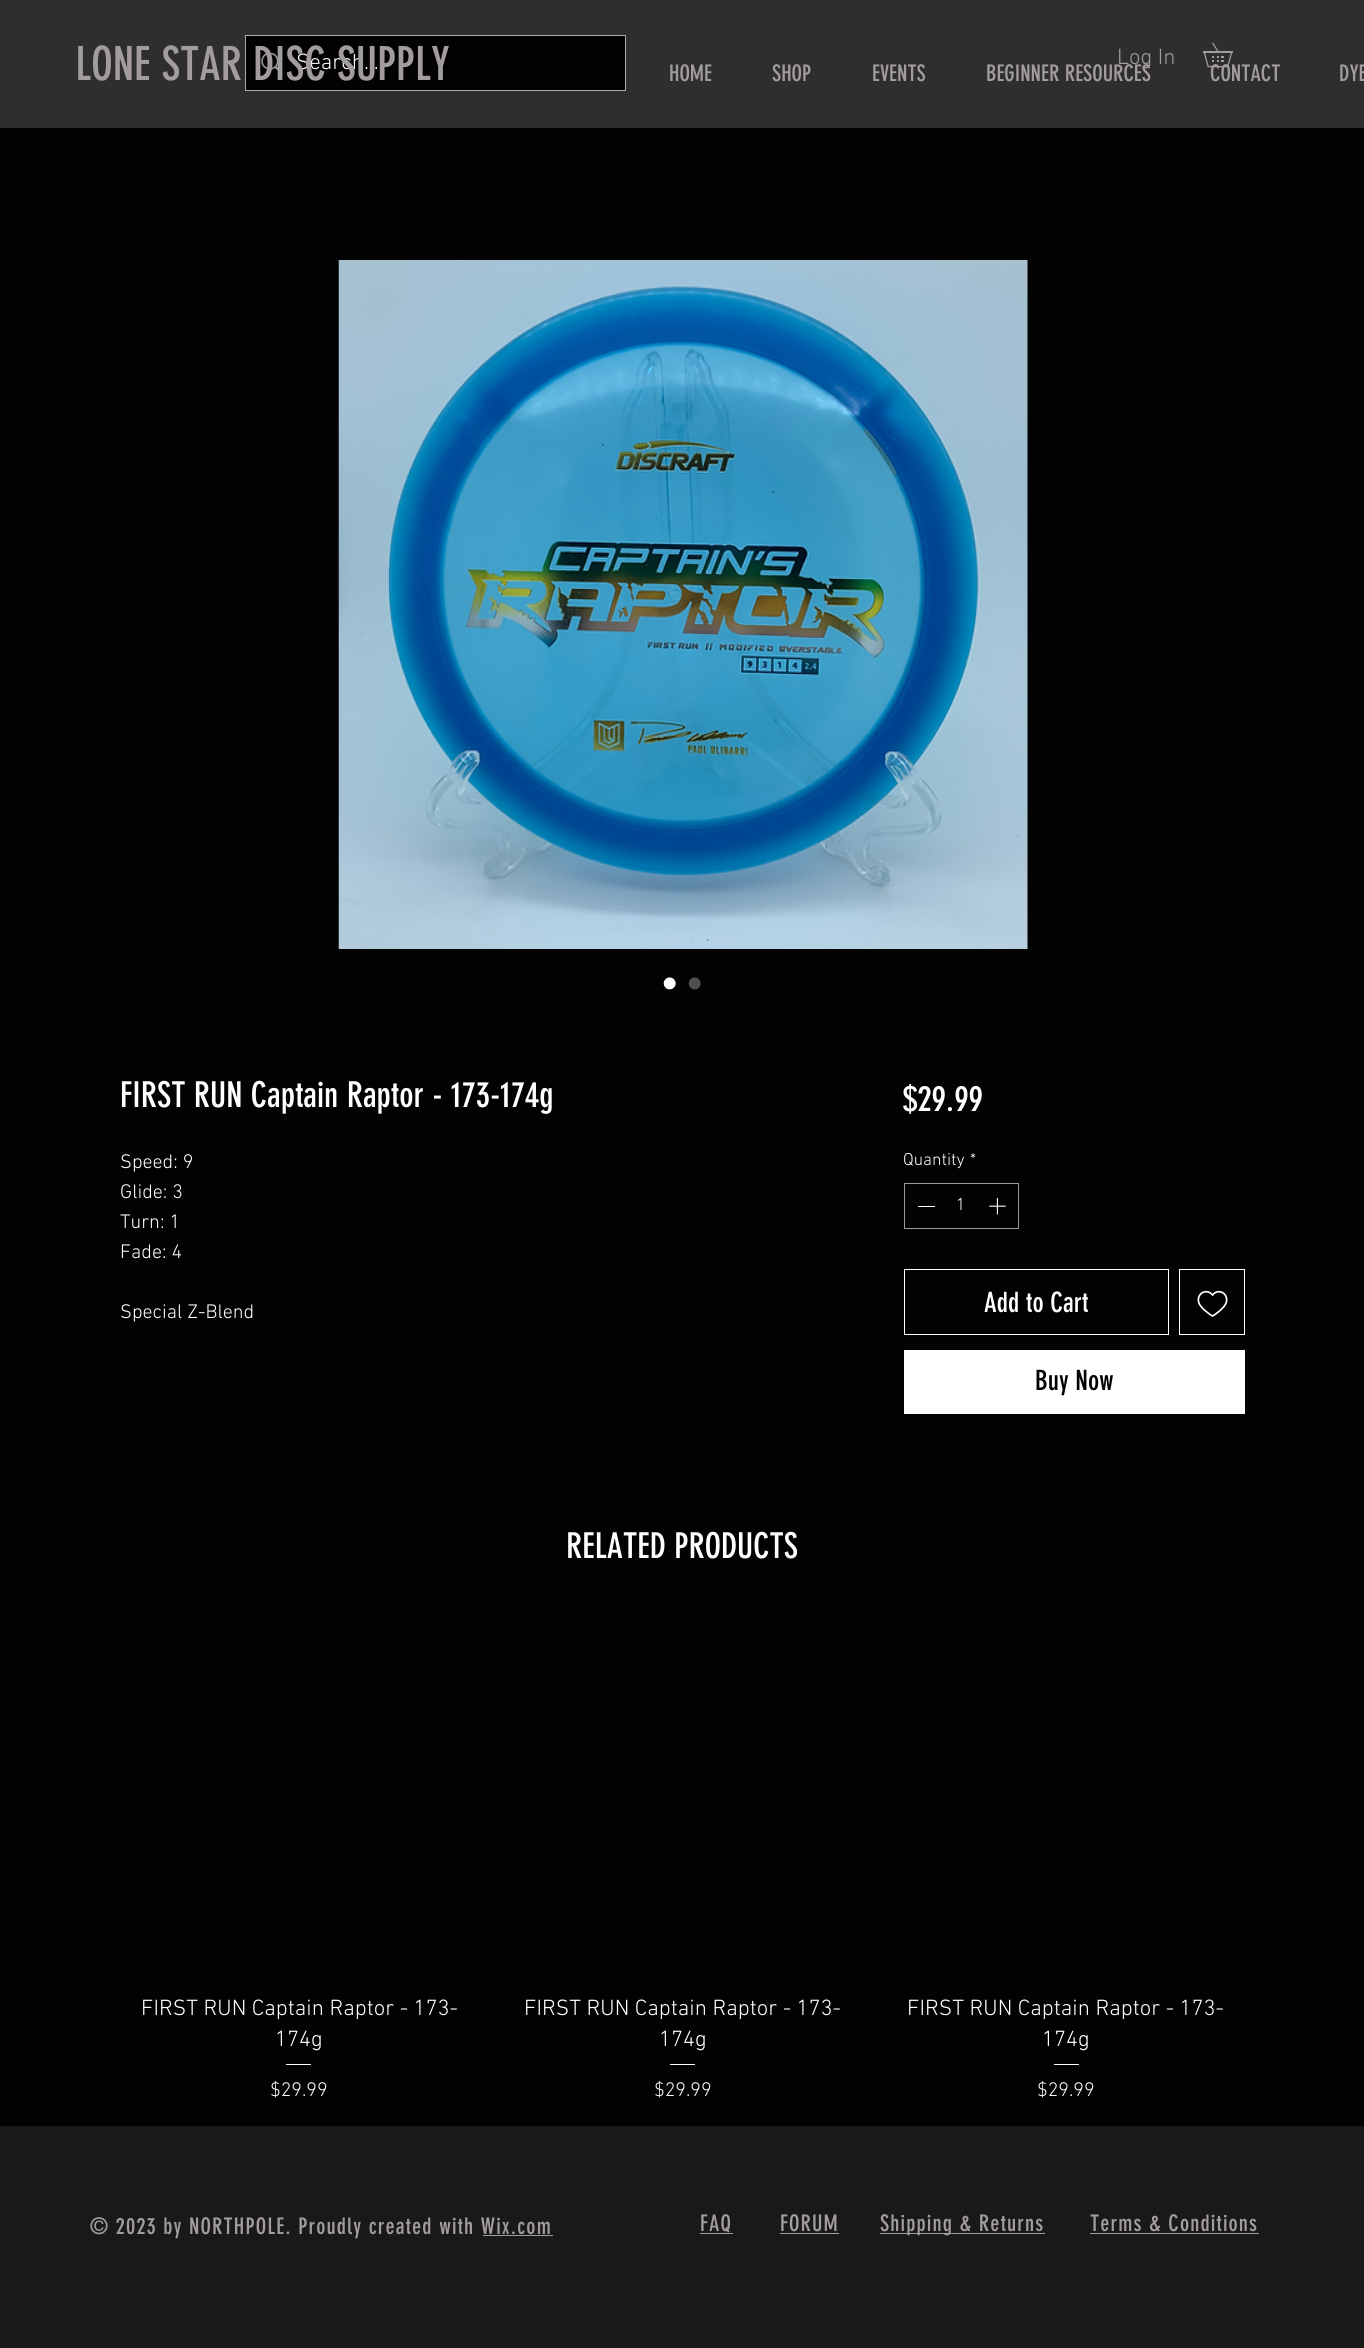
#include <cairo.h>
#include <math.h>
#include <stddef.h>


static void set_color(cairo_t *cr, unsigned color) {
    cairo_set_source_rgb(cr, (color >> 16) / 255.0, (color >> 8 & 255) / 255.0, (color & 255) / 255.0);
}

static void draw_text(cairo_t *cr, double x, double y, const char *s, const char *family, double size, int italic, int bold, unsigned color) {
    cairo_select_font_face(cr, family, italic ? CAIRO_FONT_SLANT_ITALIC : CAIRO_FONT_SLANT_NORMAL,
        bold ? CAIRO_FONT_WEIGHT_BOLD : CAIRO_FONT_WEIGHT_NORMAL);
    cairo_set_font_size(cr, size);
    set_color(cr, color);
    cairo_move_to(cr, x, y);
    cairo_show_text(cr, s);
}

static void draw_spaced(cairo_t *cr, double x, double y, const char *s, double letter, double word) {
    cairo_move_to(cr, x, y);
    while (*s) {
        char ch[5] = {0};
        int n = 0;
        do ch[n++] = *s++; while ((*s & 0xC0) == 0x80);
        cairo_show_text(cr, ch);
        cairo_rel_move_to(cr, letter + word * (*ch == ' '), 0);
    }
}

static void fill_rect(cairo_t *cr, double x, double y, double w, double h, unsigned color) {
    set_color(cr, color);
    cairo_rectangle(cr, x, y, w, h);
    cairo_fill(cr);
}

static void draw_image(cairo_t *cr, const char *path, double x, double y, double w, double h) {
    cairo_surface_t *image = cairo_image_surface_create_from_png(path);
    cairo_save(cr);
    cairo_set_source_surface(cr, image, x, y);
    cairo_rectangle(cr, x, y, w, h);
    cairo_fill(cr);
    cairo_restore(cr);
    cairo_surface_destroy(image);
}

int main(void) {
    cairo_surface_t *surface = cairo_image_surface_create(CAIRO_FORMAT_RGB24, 1364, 2348);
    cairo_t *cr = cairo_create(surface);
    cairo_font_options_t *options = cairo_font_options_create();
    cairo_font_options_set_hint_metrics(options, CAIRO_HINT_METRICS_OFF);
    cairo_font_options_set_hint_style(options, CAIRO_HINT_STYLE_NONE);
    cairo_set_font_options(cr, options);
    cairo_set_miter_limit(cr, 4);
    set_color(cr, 0x020202);
    cairo_paint(cr);
    fill_rect(cr, 0, 0, 1364, 128, 0x2F2E2E);
    cairo_rectangle(cr, 245.5, 35.5, 380, 55);
    set_color(cr, 0xACABAB);
    cairo_set_line_width(cr, 1);
    cairo_stroke(cr);
    fill_rect(cr, 246, 36, 379, 54, 0x020202);
    draw_image(cr, "assets/img2.png", 261, 53, 20, 20);
    draw_text(cr, 296, 69, "Search...", "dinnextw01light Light", 22.5, 0, 0, 0xFFFFFF);
    draw_text(cr, 75, 80, "LONE STAR DISC SUPPLY", "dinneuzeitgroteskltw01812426", 46.25, 0, 0, 0xA29C9C);
    draw_text(cr, 1117, 64, "Log In", "dinnextw01light Light", 22.5, 0, 0, 0xA29C9C);
    draw_image(cr, "assets/img1.png", 1203, 42, 30, 26);
    draw_text(cr, 669, 81, "HOME", "dinneuzeitgroteskltw01812426", 22.5, 0, 0, 0xA29C9C);
    draw_text(cr, 772, 81, "SHOP", "dinneuzeitgroteskltw01812426", 22.5, 0, 0, 0xA29C9C);
    draw_text(cr, 872, 81, "EVENTS", "dinneuzeitgroteskltw01812426", 22.5, 0, 0, 0xA29C9C);
    draw_text(cr, 986, 81, "BEGINNER RESOURCES", "dinneuzeitgroteskltw01812426", 22.5, 0, 0, 0xA29C9C);
    draw_text(cr, 1210, 81, "CONTACT", "dinneuzeitgroteskltw01812426", 22.5, 0, 0, 0xA29C9C);
    draw_text(cr, 1339, 81, "DYE", "dinneuzeitgroteskltw01812426", 22.5, 0, 0, 0xA29C9C);
    draw_image(cr, "assets/img3.png", 338, 260, 690, 689);
    draw_text(cr, 662, 998, "•", "Liberation Sans", 44, 0, 0, 0xFFFFFF);
    draw_text(cr, 687, 998, "•", "Liberation Sans", 44, 0, 0, 0x4E4E4E);
    draw_text(cr, 120, 1107, "FIRST RUN Captain Raptor - 173-174g", "dinneuzeitgroteskltw01812426", 35, 0, 0, 0xFFFFFF);
    draw_text(cr, 120, 1168, "Speed: 9", "dinnextw01light Light", 20, 0, 0, 0xFFFFFF);
    draw_text(cr, 120, 1198, "Glide: 3", "dinnextw01light Light", 20, 0, 0, 0xFFFFFF);
    draw_text(cr, 120, 1228, "Turn: 1", "dinnextw01light Light", 20, 0, 0, 0xFFFFFF);
    draw_text(cr, 120, 1258, "Fade: 4", "dinnextw01light Light", 20, 0, 0, 0xFFFFFF);
    draw_text(cr, 120, 1318, "Special Z-Blend", "dinnextw01light Light", 20, 0, 0, 0xFFFFFF);
    draw_text(cr, 903, 1111, "$29.99", "dinneuzeitgroteskltw01812426", 35, 0, 0, 0xFFFFFF);
    draw_text(cr, 903, 1165, "Quantity", "dinnextw01light Light", 17.5, 0, 0, 0xFFFFFF);
    draw_text(cr, 970, 1165, "*", "dinnextw01light Light", 17.5, 0, 0, 0xFFFFFF);
    cairo_rectangle(cr, 904.5, 1183.5, 114, 45);
    set_color(cr, 0x9A9A9A);
    cairo_stroke(cr);
    fill_rect(cr, 918, 1206, 17, 1, 0xFFFFFF);
    draw_text(cr, 956, 1210, "1", "dinnextw01light Light", 17.5, 0, 0, 0xFFFFFF);
    draw_image(cr, "assets/img4.png", 989, 1197, 17, 18);
    cairo_rectangle(cr, 904.5, 1269.5, 264, 65);
    cairo_stroke(cr);
    draw_text(cr, 984, 1312, "Add to Cart", "dinneuzeitgroteskltw01812426", 27.5, 0, 0, 0xFFFFFF);
    cairo_rectangle(cr, 1179.5, 1269.5, 65, 65);
    cairo_stroke(cr);
    draw_image(cr, "assets/img5.png", 1197, 1290, 31, 27);
    fill_rect(cr, 904, 1350, 341, 64, 0xFFFFFF);
    draw_text(cr, 1035, 1390, "Buy Now", "dinneuzeitgroteskltw01812426", 27.5, 0, 0, 0x020202);
    draw_text(cr, 566, 1558, "RELATED PRODUCTS", "dinneuzeitgroteskltw01812426", 35, 0, 0, 0xFFFFFF);
    draw_text(cr, 141, 2015, "FIRST RUN Captain Raptor - 173-", "dinnextw01light Light", 22.5, 0, 0, 0xFFFFFF);
    draw_text(cr, 275, 2046, "174g", "dinnextw01light Light", 22.5, 0, 0, 0xFFFFFF);
    fill_rect(cr, 286, 2064, 25, 1, 0xFFFFFF);
    draw_text(cr, 270, 2096, "$29.99", "dinnextw01light Light", 20, 0, 0, 0xFFFFFF);
    draw_text(cr, 524, 2015, "FIRST RUN Captain Raptor - 173-", "dinnextw01light Light", 22.5, 0, 0, 0xFFFFFF);
    draw_text(cr, 659, 2046, "174g", "dinnextw01light Light", 22.5, 0, 0, 0xFFFFFF);
    fill_rect(cr, 670, 2064, 25, 1, 0xFFFFFF);
    draw_text(cr, 654, 2096, "$29.99", "dinnextw01light Light", 20, 0, 0, 0xFFFFFF);
    draw_text(cr, 907, 2015, "FIRST RUN Captain Raptor - 173-", "dinnextw01light Light", 22.5, 0, 0, 0xFFFFFF);
    draw_text(cr, 1042, 2046, "174g", "dinnextw01light Light", 22.5, 0, 0, 0xFFFFFF);
    fill_rect(cr, 1054, 2064, 25, 1, 0xFFFFFF);
    draw_text(cr, 1037, 2096, "$29.99", "dinnextw01light Light", 20, 0, 0, 0xFFFFFF);
    fill_rect(cr, 0, 2126, 1364, 222, 0x1A1919);
    cairo_select_font_face(cr, "dinneuzeitgroteskltw01812426", CAIRO_FONT_SLANT_NORMAL, CAIRO_FONT_WEIGHT_NORMAL);
    cairo_set_font_size(cr, 22.5);
    set_color(cr, 0xA29C9C);
    draw_spaced(cr, 90, 2234, "© 2023 by NORTHPOLE. Proudly created with Wix.com", 1.1, 0);
    fill_rect(cr, 483, 2235, 70, 1, 0xA29C9C);
    draw_spaced(cr, 700, 2231, "FAQ", 1.1, 0);
    fill_rect(cr, 700, 2233, 33, 1, 0xA29C9C);
    draw_spaced(cr, 780, 2231, "FORUM", 1.1, 0);
    fill_rect(cr, 780, 2233, 59, 1, 0xA29C9C);
    fill_rect(cr, 880, 2233, 165, 1, 0xA29C9C);
    draw_spaced(cr, 880, 2231, "Shipping & Returns", 1.1, 0);
    draw_spaced(cr, 1090, 2231, "Terms & Conditions", 1.1, 0);
    fill_rect(cr, 1090, 2233, 169, 1, 0xA29C9C);
    cairo_surface_write_to_png(surface, "output.png");
    cairo_font_options_destroy(options);
    cairo_destroy(cr);
    cairo_surface_destroy(surface);
    return 0;
}
